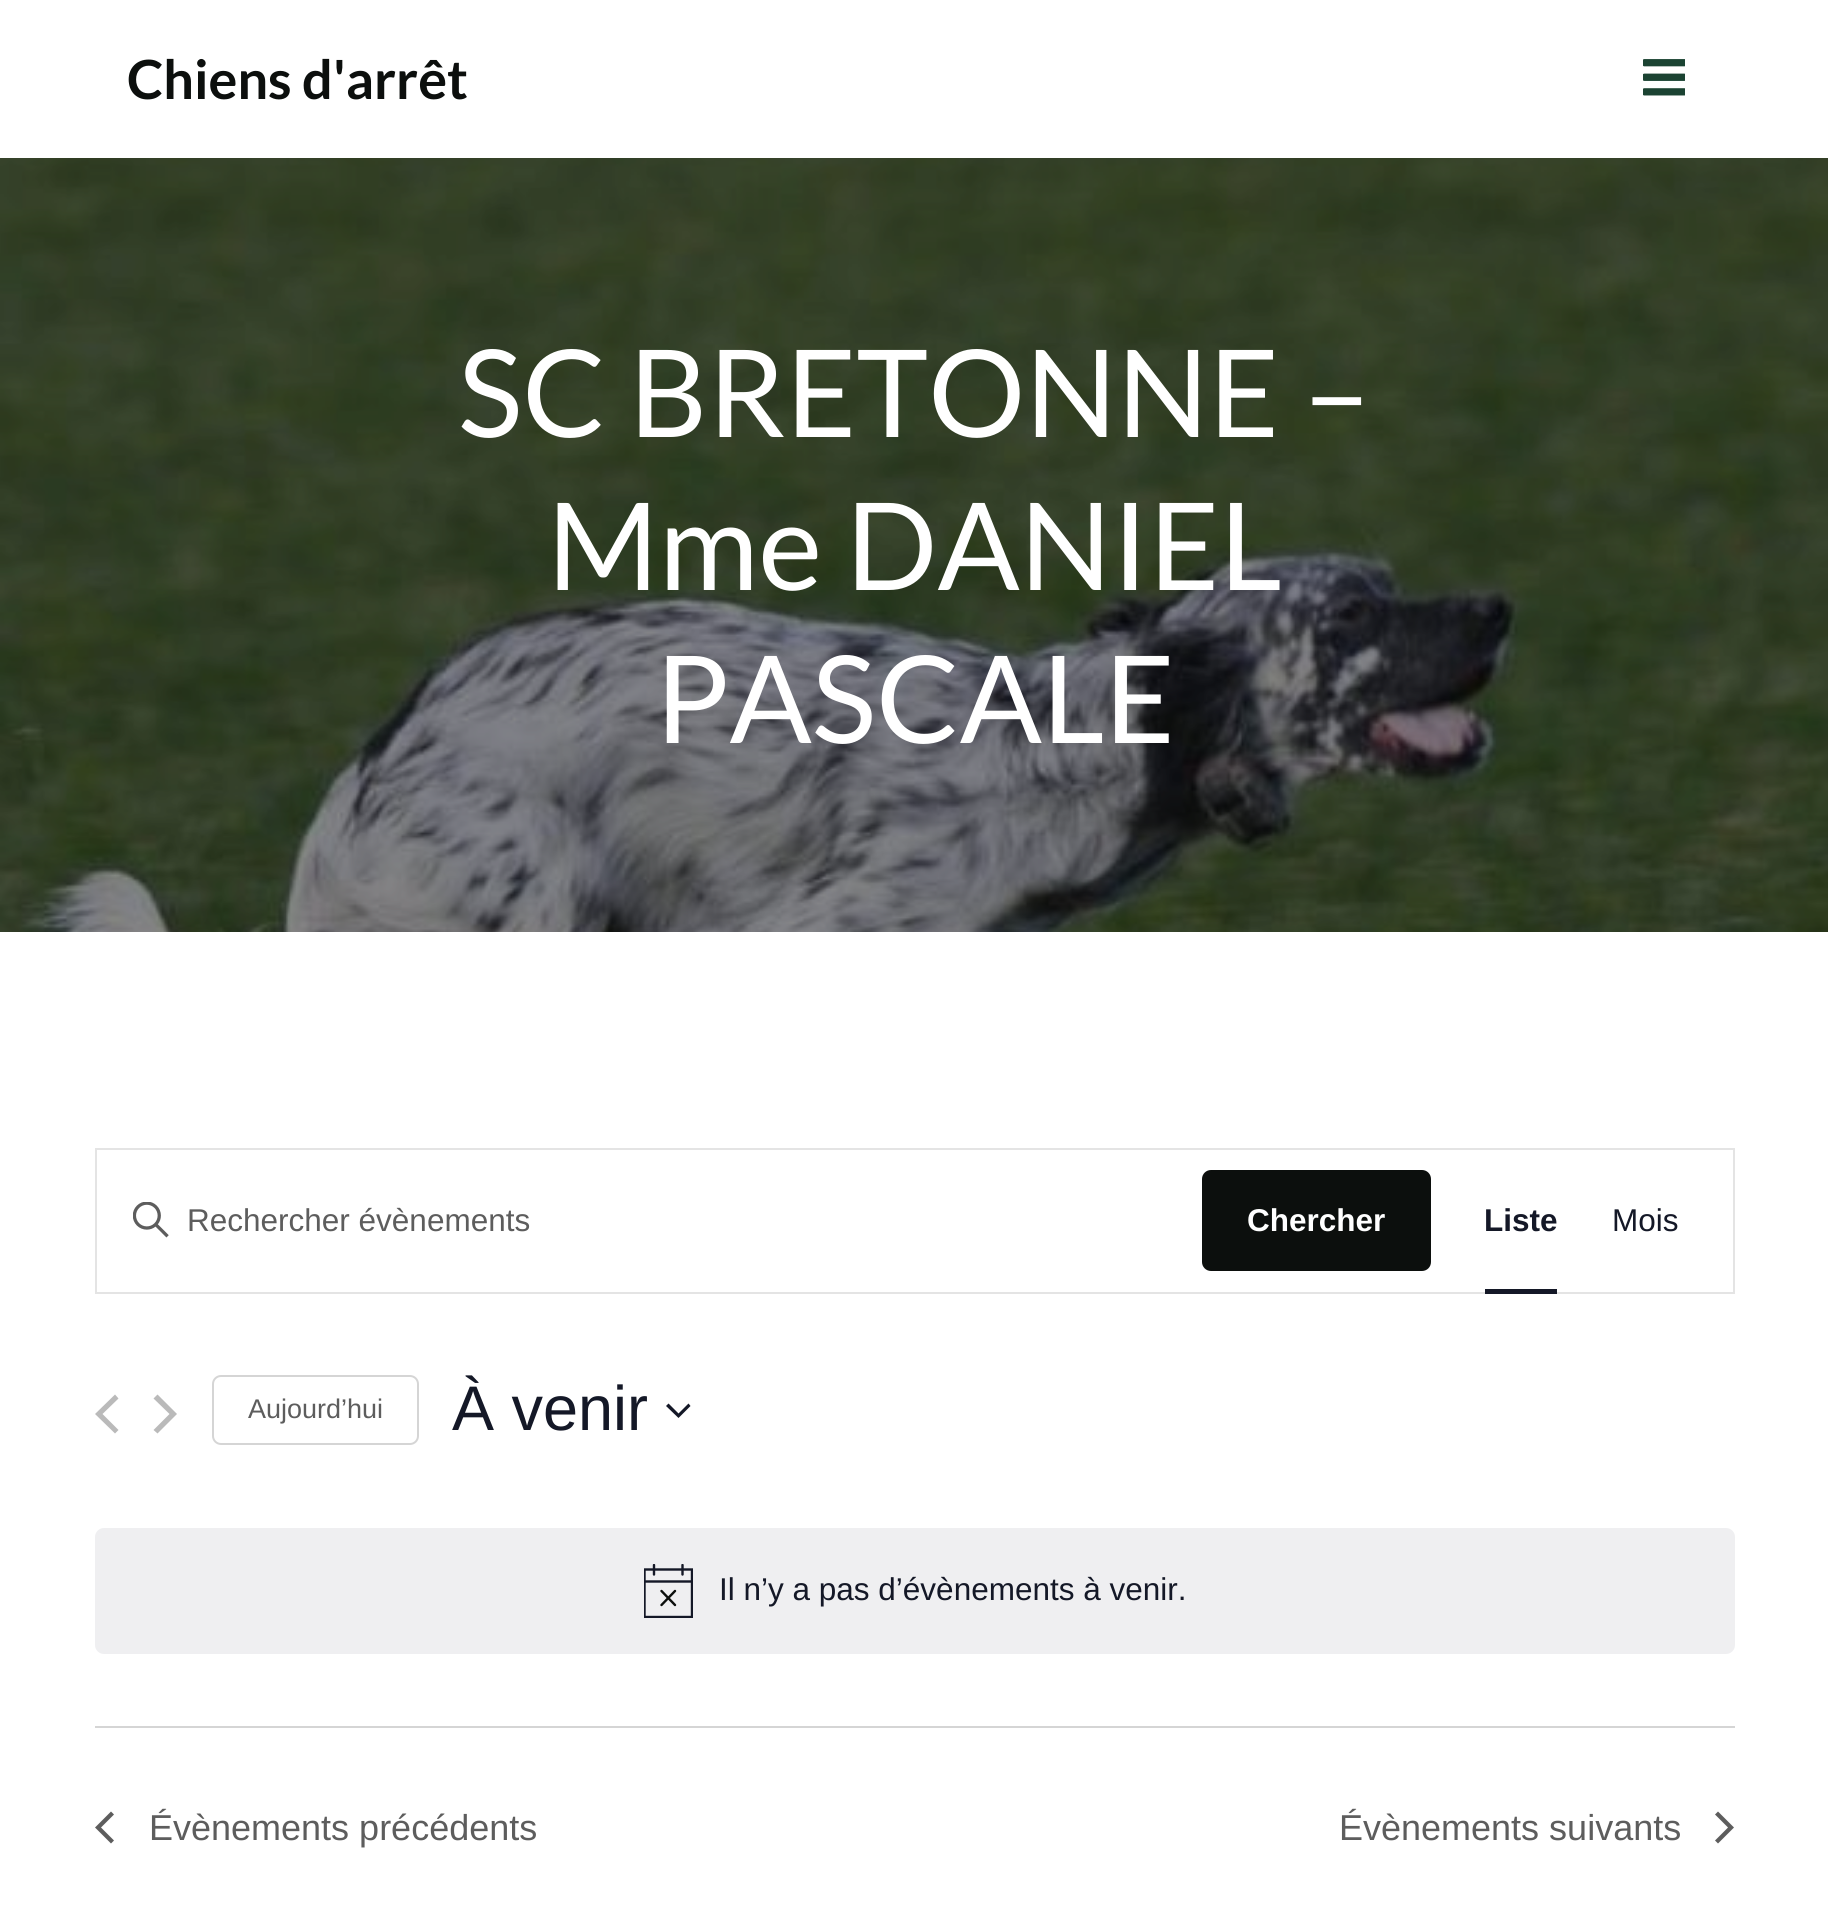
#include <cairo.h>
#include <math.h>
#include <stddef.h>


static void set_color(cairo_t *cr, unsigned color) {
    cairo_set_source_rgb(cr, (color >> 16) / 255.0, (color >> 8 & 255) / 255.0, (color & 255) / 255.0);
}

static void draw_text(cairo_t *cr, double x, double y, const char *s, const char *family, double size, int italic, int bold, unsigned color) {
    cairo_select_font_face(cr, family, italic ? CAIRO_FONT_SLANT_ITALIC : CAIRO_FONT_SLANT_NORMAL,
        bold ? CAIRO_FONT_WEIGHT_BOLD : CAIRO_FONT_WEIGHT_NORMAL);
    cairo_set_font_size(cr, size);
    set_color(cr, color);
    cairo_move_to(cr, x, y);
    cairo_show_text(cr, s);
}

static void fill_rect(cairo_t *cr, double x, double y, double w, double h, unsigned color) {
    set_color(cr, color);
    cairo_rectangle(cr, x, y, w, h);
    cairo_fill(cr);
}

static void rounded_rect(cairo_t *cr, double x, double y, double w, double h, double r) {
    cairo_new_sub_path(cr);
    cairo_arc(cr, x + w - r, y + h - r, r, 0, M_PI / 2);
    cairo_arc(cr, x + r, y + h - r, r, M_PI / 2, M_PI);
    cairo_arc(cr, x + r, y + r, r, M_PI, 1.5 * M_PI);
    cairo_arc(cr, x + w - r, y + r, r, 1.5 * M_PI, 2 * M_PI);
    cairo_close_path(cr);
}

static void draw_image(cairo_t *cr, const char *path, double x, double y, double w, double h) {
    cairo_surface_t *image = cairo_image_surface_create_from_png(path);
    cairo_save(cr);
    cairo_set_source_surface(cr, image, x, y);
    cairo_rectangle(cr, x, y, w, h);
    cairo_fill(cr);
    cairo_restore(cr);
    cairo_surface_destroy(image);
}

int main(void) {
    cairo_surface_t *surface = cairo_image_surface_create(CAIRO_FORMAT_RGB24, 1828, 1905);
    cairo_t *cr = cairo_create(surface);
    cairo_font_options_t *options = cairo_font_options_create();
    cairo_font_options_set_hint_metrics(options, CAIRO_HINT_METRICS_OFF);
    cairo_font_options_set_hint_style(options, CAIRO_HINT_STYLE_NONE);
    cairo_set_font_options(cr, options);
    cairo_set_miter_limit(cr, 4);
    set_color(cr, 0xFFFFFF);
    cairo_paint(cr);
    draw_text(cr, 127, 99, "Chiens d'arrêt", "Lato", 54, 0, 1, 0x0C0F0D);
    draw_image(cr, "assets/img1.png", 1643, 59, 42, 37);
    draw_image(cr, "assets/img2.png", 0, 158, 1828, 774);
    draw_text(cr, 458, 437, "SC BRETONNE –", "Lato", 121.5, 0, 0, 0xFFFFFF);
    draw_text(cr, 547, 590, "Mme DANIEL", "Lato", 121.5, 0, 0, 0xFFFFFF);
    draw_text(cr, 655, 743, "PASCALE", "Lato", 121.5, 0, 0, 0xFFFFFF);
    cairo_rectangle(cr, 96, 1149, 1638, 144);
    set_color(cr, 0xE4E4E4);
    cairo_stroke(cr);
    draw_image(cr, "assets/img3.png", 133, 1202, 36, 36);
    draw_text(cr, 187, 1231, "Rechercher évènements", "Liberation Sans", 31.5, 0, 0, 0x5D5D5D);
    set_color(cr, 0x0C0F0D);
    rounded_rect(cr, 1202, 1170, 229, 101, 9);
    cairo_fill(cr);
    draw_text(cr, 1247, 1231, "Chercher", "Liberation Sans", 31.5, 0, 1, 0xFFFFFF);
    draw_text(cr, 1484, 1231, "Liste", "Liberation Sans", 31.5, 0, 1, 0x141827);
    fill_rect(cr, 1485, 1289, 72, 5, 0x141827);
    draw_text(cr, 1612, 1231, "Mois", "Liberation Sans", 31.5, 0, 0, 0x141827);
    set_color(cr, 0xBABABA);
    cairo_new_path(cr);
    cairo_move_to(cr, 118.5, 1430);
    cairo_line_to(cr, 115, 1433.5);
    cairo_line_to(cr, 95, 1414);
    cairo_line_to(cr, 115, 1394.5);
    cairo_line_to(cr, 118.5, 1398.5);
    cairo_line_to(cr, 102.5, 1414);
    cairo_close_path(cr);
    cairo_fill(cr);
    cairo_new_path(cr);
    cairo_move_to(cr, 153.5, 1398.5);
    cairo_line_to(cr, 157.5, 1394.5);
    cairo_line_to(cr, 177, 1414);
    cairo_line_to(cr, 157.5, 1433.5);
    cairo_line_to(cr, 153.5, 1430);
    cairo_line_to(cr, 169.5, 1414);
    cairo_close_path(cr);
    cairo_fill(cr);
    rounded_rect(cr, 213, 1376, 205, 68, 8);
    set_color(cr, 0xD5D5D5);
    cairo_stroke(cr);
    draw_text(cr, 248, 1418, "Aujourd’hui", "Liberation Sans", 27, 0, 0, 0x5D5D5D);
    draw_text(cr, 452, 1430, "À venir", "Liberation Sans", 63, 0, 0, 0x141827);
    cairo_set_fill_rule(cr, CAIRO_FILL_RULE_EVEN_ODD);
    cairo_new_path(cr);
    cairo_move_to(cr, 668.5, 1403.5);
    cairo_line_to(cr, 678.5, 1413.5);
    cairo_line_to(cr, 688.5, 1403.5);
    cairo_line_to(cr, 690.5, 1406);
    cairo_line_to(cr, 678.5, 1418);
    cairo_line_to(cr, 666, 1406);
    cairo_close_path(cr);
    cairo_fill(cr);
    set_color(cr, 0xEFEFF1);
    rounded_rect(cr, 95, 1528, 1640, 126, 9);
    cairo_fill(cr);
    cairo_save(cr);
    cairo_set_fill_rule(cr, CAIRO_FILL_RULE_WINDING);
    cairo_rectangle(cr, 644, 1564, 49, 54);
    cairo_clip(cr);
    cairo_new_path(cr);
    cairo_move_to(cr, 644.5, 1569.5);
    cairo_line_to(cr, 692, 1569.5);
    cairo_line_to(cr, 692, 1617);
    cairo_line_to(cr, 644.5, 1617);
    cairo_close_path(cr);
    set_color(cr, 0x141827);
    cairo_set_line_width(cr, 2.4);
    cairo_stroke(cr);
    cairo_restore(cr);
    cairo_new_path(cr);
    cairo_move_to(cr, 661.5, 1591);
    cairo_line_to(cr, 675, 1605);
    cairo_move_to(cr, 675, 1591);
    cairo_line_to(cr, 661.5, 1605);
    set_color(cr, 0x0C0F0D);
    cairo_set_line_width(cr, 2.4);
    cairo_set_line_cap(cr, CAIRO_LINE_CAP_ROUND);
    cairo_stroke(cr);
    cairo_save(cr);
    cairo_set_fill_rule(cr, CAIRO_FILL_RULE_WINDING);
    cairo_rectangle(cr, 644, 1564, 49, 54);
    cairo_clip(cr);
    cairo_new_path(cr);
    cairo_move_to(cr, 654, 1565);
    cairo_line_to(cr, 654, 1574.5);
    cairo_move_to(cr, 682.5, 1565);
    cairo_line_to(cr, 682.5, 1574.5);
    set_color(cr, 0x141827);
    cairo_stroke(cr);
    cairo_new_path(cr);
    cairo_move_to(cr, 644.5, 1581.5);
    cairo_line_to(cr, 692, 1581.5);
    cairo_set_line_cap(cr, CAIRO_LINE_CAP_SQUARE);
    cairo_stroke(cr);
    cairo_restore(cr);
    draw_text(cr, 719, 1600, "Il n’y a pas d’évènements à venir.", "Liberation Sans", 31.5, 0, 0, 0x141827);
    fill_rect(cr, 95, 1726, 1640, 2, 0xD5D5D5);
    set_color(cr, 0x5D5D5D);
    cairo_set_fill_rule(cr, CAIRO_FILL_RULE_WINDING);
    cairo_new_path(cr);
    cairo_move_to(cr, 114, 1840.5);
    cairo_line_to(cr, 111, 1843.5);
    cairo_line_to(cr, 95, 1827.5);
    cairo_line_to(cr, 111, 1811.5);
    cairo_line_to(cr, 114, 1814.5);
    cairo_line_to(cr, 101, 1827.5);
    cairo_close_path(cr);
    cairo_fill(cr);
    draw_text(cr, 149, 1840, "Évènements précédents", "Liberation Sans", 36, 0, 0, 0x5D5D5D);
    draw_text(cr, 1339, 1840, "Évènements suivants", "Liberation Sans", 36, 0, 0, 0x5D5D5D);
    cairo_new_path(cr);
    cairo_move_to(cr, 1715, 1814.5);
    cairo_line_to(cr, 1718, 1811.5);
    cairo_line_to(cr, 1734, 1827.5);
    cairo_line_to(cr, 1718, 1843.5);
    cairo_line_to(cr, 1715, 1840.5);
    cairo_line_to(cr, 1728, 1827.5);
    cairo_close_path(cr);
    cairo_fill(cr);
    cairo_surface_write_to_png(surface, "output.png");
    cairo_font_options_destroy(options);
    cairo_destroy(cr);
    cairo_surface_destroy(surface);
    return 0;
}
